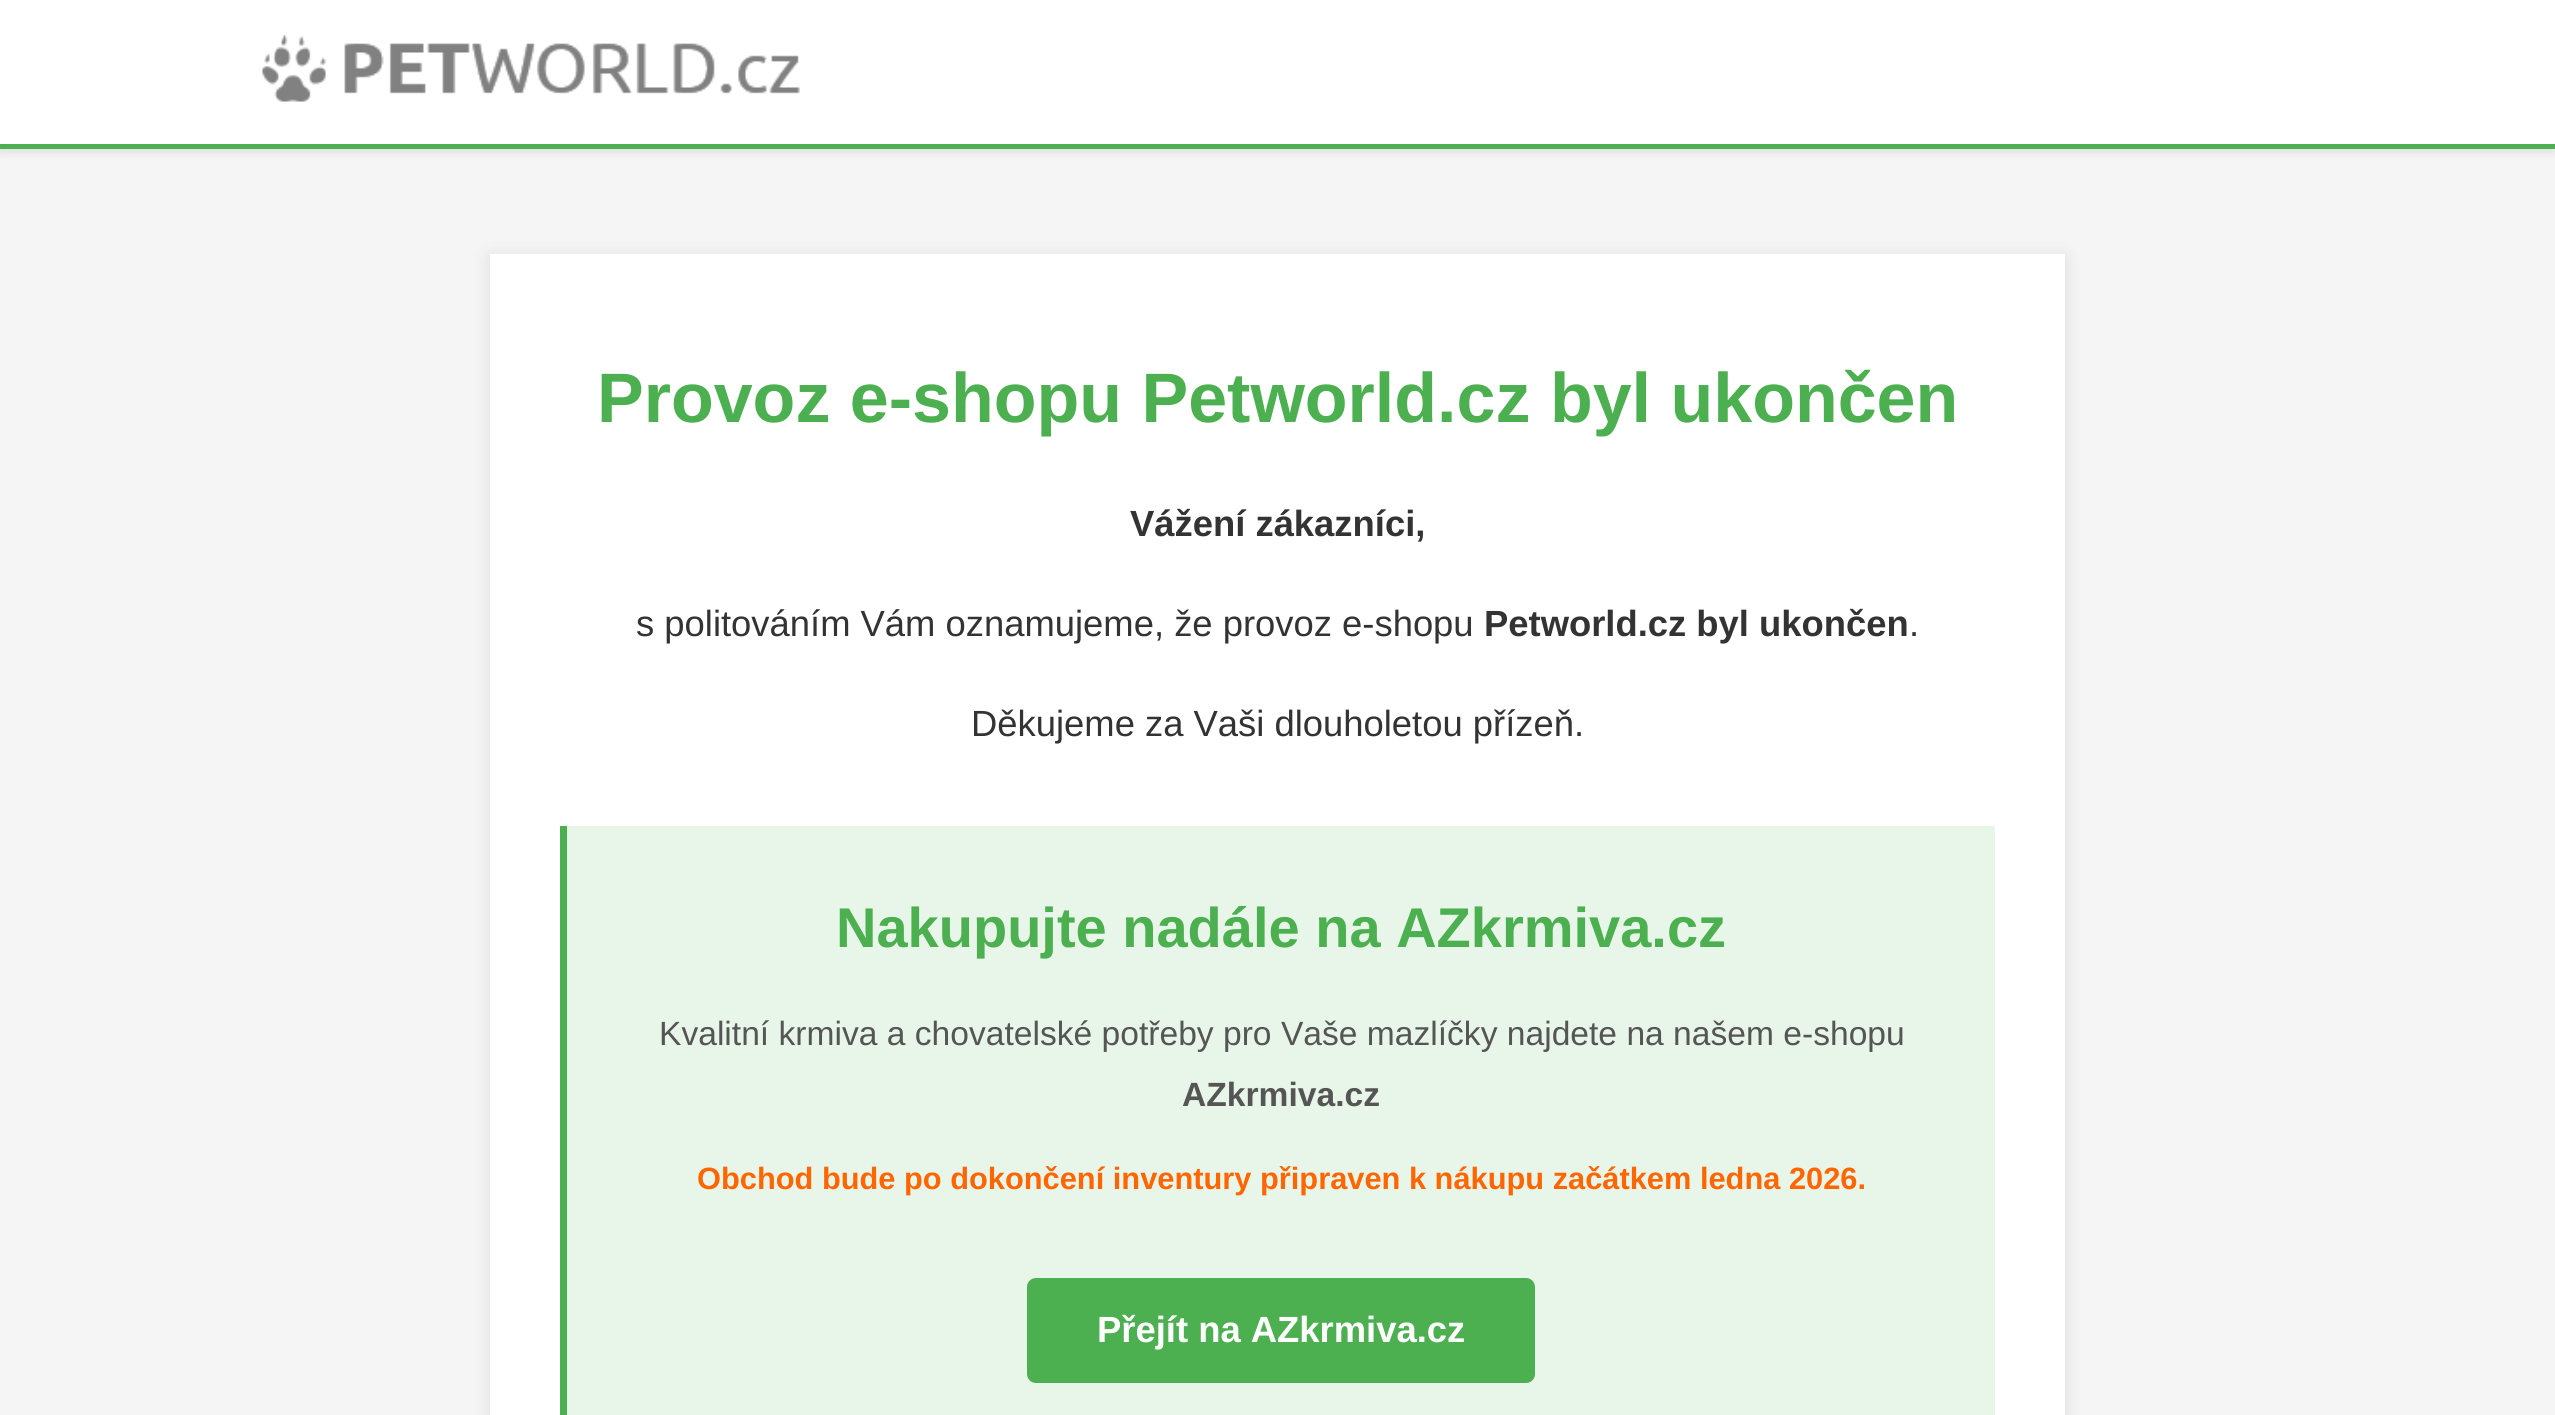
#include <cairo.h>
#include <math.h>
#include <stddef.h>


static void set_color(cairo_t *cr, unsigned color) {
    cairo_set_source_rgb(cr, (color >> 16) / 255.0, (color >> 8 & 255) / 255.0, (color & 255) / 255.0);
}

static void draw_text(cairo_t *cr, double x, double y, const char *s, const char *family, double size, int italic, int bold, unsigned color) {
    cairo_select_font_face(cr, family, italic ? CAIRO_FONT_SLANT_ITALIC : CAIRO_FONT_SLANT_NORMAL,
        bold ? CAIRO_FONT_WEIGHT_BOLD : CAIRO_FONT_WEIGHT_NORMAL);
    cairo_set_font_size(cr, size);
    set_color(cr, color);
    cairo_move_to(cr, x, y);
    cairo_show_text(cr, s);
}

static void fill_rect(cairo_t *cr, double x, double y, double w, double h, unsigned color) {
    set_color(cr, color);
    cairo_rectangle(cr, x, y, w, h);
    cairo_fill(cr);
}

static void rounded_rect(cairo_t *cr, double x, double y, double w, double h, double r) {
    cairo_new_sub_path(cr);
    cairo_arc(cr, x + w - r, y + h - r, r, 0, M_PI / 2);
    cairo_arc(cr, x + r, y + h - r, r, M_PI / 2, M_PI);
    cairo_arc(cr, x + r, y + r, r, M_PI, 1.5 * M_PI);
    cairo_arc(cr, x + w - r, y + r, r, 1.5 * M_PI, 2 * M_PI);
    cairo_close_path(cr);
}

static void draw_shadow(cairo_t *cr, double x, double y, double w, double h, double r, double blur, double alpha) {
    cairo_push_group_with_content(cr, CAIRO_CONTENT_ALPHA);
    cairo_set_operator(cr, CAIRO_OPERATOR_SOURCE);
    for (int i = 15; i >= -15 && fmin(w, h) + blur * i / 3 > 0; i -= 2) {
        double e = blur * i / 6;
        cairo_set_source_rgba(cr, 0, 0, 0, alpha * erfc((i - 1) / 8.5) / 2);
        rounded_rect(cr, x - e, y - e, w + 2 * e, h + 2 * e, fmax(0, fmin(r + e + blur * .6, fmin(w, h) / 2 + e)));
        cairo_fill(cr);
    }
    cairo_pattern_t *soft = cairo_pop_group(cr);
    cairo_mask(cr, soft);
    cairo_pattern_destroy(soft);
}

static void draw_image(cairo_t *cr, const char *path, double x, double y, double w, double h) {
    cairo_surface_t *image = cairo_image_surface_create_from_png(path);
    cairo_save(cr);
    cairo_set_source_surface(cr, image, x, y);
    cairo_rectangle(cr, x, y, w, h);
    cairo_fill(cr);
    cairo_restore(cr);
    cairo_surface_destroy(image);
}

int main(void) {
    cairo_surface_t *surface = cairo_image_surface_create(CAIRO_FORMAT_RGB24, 2555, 1415);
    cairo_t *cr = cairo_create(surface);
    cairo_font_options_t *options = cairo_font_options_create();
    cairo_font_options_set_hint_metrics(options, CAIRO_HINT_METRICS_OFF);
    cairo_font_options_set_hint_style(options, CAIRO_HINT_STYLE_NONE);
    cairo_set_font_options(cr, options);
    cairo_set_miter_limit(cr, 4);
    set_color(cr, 0xF5F5F5);
    cairo_paint(cr);
    set_color(cr, 0x000000);
    draw_shadow(cr, 0, 4, 2555, 148, 0, 4.5, 0.1);
    fill_rect(cr, 0, 0, 2555, 144, 0xFFFFFF);
    fill_rect(cr, 0, 144, 2555, 5, 0x4CAF50);
    draw_image(cr, "assets/img1.png", 262, 35, 538, 67);
    set_color(cr, 0x000000);
    draw_shadow(cr, 490, 257, 1575, 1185, 0, 9, 0.1);
    fill_rect(cr, 490, 254, 1575, 1161, 0xFFFFFF);
    draw_text(cr, 597, 422, "Provoz e-shopu Petworld.cz byl ukončen", "Liberation Sans", 70, 0, 1, 0x4CAF50);
    draw_text(cr, 1130, 536, "Vážení zákazníci,", "Liberation Sans", 36.4, 0, 1, 0x333333);
    draw_text(cr, 636, 636, "s politováním Vám oznamujeme, že provoz e-shopu", "Liberation Sans", 36.4, 0, 0, 0x333333);
    draw_text(cr, 1484, 636, "Petworld.cz byl ukončen", "Liberation Sans", 36.4, 0, 1, 0x333333);
    draw_text(cr, 1909, 636, ".", "Liberation Sans", 36.4, 0, 0, 0x333333);
    draw_text(cr, 971, 736, "Děkujeme za Vaši dlouholetou přízeň.", "Liberation Sans", 36.4, 0, 0, 0x333333);
    fill_rect(cr, 567, 826, 1428, 589, 0xE8F5E9);
    fill_rect(cr, 560, 826, 7, 589, 0x4CAF50);
    draw_text(cr, 836, 947, "Nakupujte nadále na AZkrmiva.cz", "Liberation Sans", 56, 0, 1, 0x4CAF50);
    draw_text(cr, 659, 1045, "Kvalitní krmiva a chovatelské potřeby pro Vaše mazlíčky najdete na našem e-shopu", "Liberation Sans", 33.6, 0, 0, 0x555555);
    draw_text(cr, 1182, 1106, "AZkrmiva.cz", "Liberation Sans", 33.6, 0, 1, 0x555555);
    draw_text(cr, 697, 1189, "Obchod bude po dokončení inventury připraven k nákupu začátkem ledna 2026.", "Liberation Sans", 30.8, 0, 1, 0xFF6600);
    set_color(cr, 0x4CAF50);
    rounded_rect(cr, 1027, 1278, 508, 105, 9);
    cairo_fill(cr);
    draw_text(cr, 1097, 1342, "Přejít na AZkrmiva.cz", "Liberation Sans", 36.4, 0, 1, 0xFFFFFF);
    cairo_surface_write_to_png(surface, "output.png");
    cairo_font_options_destroy(options);
    cairo_destroy(cr);
    cairo_surface_destroy(surface);
    return 0;
}
